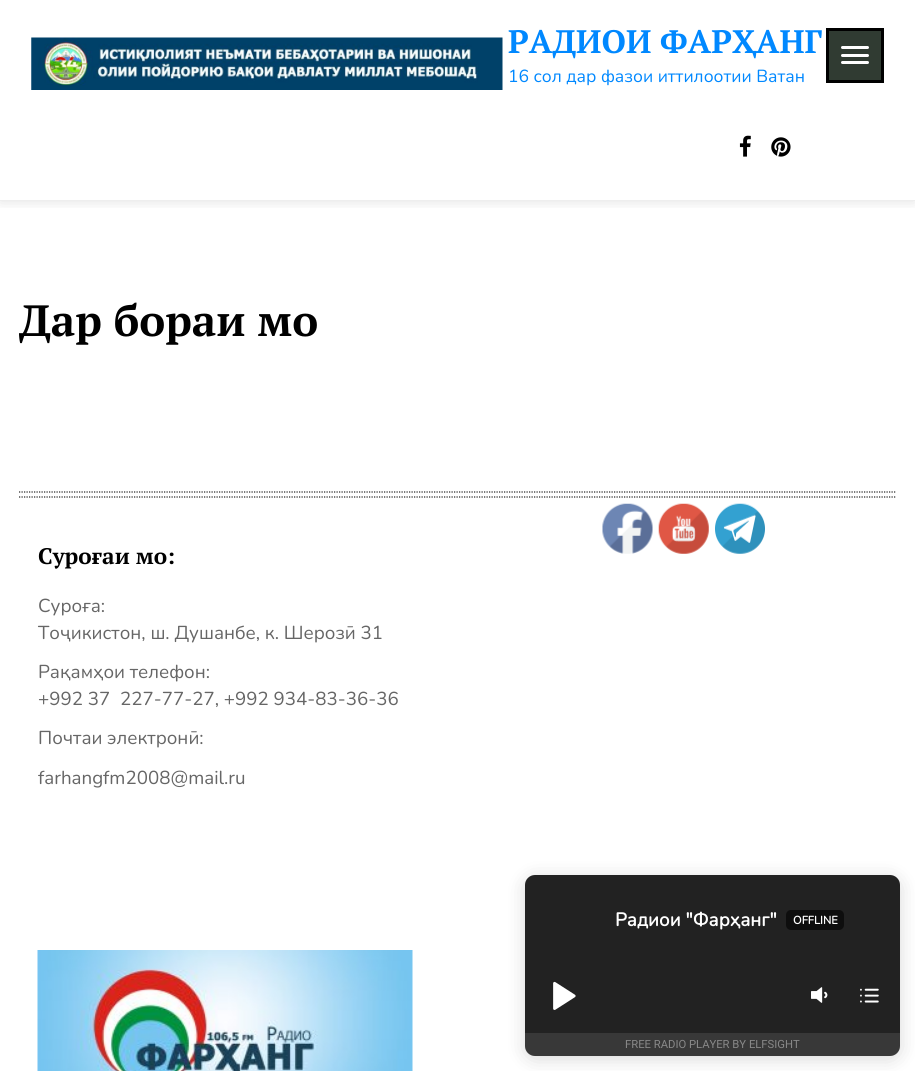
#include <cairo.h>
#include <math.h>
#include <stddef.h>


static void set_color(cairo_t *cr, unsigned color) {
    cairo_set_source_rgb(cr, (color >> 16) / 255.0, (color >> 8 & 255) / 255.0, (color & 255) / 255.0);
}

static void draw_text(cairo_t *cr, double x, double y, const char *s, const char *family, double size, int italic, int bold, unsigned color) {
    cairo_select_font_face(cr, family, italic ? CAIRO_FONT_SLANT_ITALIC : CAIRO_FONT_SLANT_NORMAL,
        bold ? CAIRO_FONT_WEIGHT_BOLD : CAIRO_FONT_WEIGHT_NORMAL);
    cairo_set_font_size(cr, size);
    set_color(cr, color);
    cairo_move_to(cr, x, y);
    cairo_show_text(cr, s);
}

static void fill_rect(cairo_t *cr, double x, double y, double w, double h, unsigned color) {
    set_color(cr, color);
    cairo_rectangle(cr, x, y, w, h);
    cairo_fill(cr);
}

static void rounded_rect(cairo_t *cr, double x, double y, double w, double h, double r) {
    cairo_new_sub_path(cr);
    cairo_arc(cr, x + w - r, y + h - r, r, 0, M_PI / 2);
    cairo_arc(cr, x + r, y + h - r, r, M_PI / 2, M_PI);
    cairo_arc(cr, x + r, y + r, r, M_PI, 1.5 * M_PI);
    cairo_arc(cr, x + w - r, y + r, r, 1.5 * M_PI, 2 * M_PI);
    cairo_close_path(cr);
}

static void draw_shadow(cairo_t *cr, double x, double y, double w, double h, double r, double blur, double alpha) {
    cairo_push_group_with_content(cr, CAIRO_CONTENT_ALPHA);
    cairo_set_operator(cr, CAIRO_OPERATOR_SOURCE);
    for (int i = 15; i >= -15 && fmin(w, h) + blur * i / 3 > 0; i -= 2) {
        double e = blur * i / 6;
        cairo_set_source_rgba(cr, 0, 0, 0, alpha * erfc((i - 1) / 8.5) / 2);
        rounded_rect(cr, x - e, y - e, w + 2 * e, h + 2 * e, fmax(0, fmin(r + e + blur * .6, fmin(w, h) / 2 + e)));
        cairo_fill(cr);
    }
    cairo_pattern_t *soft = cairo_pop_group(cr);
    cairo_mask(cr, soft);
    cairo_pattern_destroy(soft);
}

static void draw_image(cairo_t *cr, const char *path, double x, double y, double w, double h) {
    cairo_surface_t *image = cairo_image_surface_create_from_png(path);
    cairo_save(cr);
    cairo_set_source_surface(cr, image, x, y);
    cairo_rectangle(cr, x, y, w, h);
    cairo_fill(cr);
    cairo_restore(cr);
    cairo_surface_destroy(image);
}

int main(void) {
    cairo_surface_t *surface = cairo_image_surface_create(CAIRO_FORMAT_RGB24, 915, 1071);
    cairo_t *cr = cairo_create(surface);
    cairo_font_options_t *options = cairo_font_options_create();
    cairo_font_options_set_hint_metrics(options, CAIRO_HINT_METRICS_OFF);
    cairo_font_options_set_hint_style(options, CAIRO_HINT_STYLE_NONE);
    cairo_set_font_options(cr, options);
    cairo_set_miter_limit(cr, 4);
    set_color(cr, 0xFFFFFF);
    cairo_paint(cr);
    cairo_save(cr);
    cairo_rectangle(cr, 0, 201, 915, 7);
    cairo_clip(cr);
    set_color(cr, 0x000000);
    draw_shadow(cr, 0, 0, 915, 201, 0, 7.5, 0.12);
    cairo_restore(cr);
    fill_rect(cr, 0, 200, 915, 1, 0xEEEEEE);
    set_color(cr, 0x303B32);
    cairo_rectangle(cr, 827.5, 29.5, 55, 52);
    cairo_fill_preserve(cr);
    set_color(cr, 0x000000);
    cairo_set_line_width(cr, 3);
    cairo_stroke(cr);
    set_color(cr, 0xFFFFFF);
    rounded_rect(cr, 841, 46, 28, 3, 1.5);
    cairo_fill(cr);
    rounded_rect(cr, 841, 54, 28, 3, 1.5);
    cairo_fill(cr);
    rounded_rect(cr, 841, 61, 28, 3, 1.5);
    cairo_fill(cr);
    draw_image(cr, "assets/img1.png", 739, 135, 12, 22);
    draw_image(cr, "assets/img2.png", 771, 137, 20, 20);
    draw_image(cr, "assets/img3.png", 31, 37, 472, 53);
    draw_text(cr, 508, 53, "РАДИОИ ФАРҲАНГ", "PT Serif", 32.5, 0, 1, 0x0088FF);
    draw_text(cr, 508, 82, "16 сол дар фазои иттилоотии Ватан", "Nunito", 17.5, 0, 0, 0x0088FF);
    draw_text(cr, 19, 336, "Дар бораи мо", "PT Serif", 43.75, 0, 1, 0x000000);
    cairo_new_path(cr);
    cairo_move_to(cr, 19, 492);
    cairo_line_to(cr, 896, 492);
    set_color(cr, 0x222222);
    cairo_set_line_width(cr, 1.2);
    cairo_set_dash(cr, (double[]){1.25, 1.25}, 2, 0);
    cairo_stroke(cr);
    cairo_new_path(cr);
    cairo_move_to(cr, 19, 497);
    cairo_line_to(cr, 896, 497);
    cairo_stroke(cr);
    draw_text(cr, 38, 564, "Суроғаи мо:", "PT Serif", 22.5, 0, 1, 0x000000);
    draw_text(cr, 38, 612, "Суроға:", "Nunito", 18.75, 0, 0, 0x666666);
    draw_text(cr, 38, 639, "Тоҷикистон, ш. Душанбе, к. Шерозӣ 31", "Nunito", 18.75, 0, 0, 0x666666);
    draw_text(cr, 38, 678, "Рақамҳои телефон:", "Nunito", 18.75, 0, 0, 0x666666);
    draw_text(cr, 38, 705, "+992 37  227-77-27, +992 934-83-36-36", "Nunito", 18.75, 0, 0, 0x666666);
    draw_text(cr, 38, 744, "Почтаи электронӣ:", "Nunito", 18.75, 0, 0, 0x666666);
    draw_text(cr, 38, 784, "farhangfm2008@mail.ru", "Nunito", 18.75, 0, 0, 0x666666);
    draw_image(cr, "assets/img4.png", 37, 950, 376, 121);
    draw_image(cr, "assets/img5.png", 602, 503, 51, 51);
    draw_image(cr, "assets/img6.png", 658, 503, 51, 51);
    draw_image(cr, "assets/img7.png", 715, 503, 50, 51);
    set_color(cr, 0x000000);
    draw_shadow(cr, 525, 878, 375, 181, 10, 9.5, 0.15);
    set_color(cr, 0x222222);
    rounded_rect(cr, 525, 875, 375, 181, 10);
    cairo_fill(cr);
    draw_text(cr, 615, 926, "Радиои \"Фарҳанг\"", "Nunito", 18.75, 0, 1, 0xFFFFFF);
    set_color(cr, 0x0E0E0E);
    rounded_rect(cr, 786, 910, 58, 20, 5);
    cairo_fill(cr);
    draw_text(cr, 793, 924, "OFFLINE", "Nunito", 11.25, 0, 1, 0xFFFFFF);
    draw_image(cr, "assets/img8.png", 553, 981, 23, 29);
    draw_image(cr, "assets/img9.png", 811, 987, 17, 16);
    draw_image(cr, "assets/img10.png", 860, 988, 19, 15);
    cairo_set_source_rgba(cr, 1, 1, 1, 0.1);
    cairo_new_path(cr);
    cairo_move_to(cr, 525, 1033);
    cairo_line_to(cr, 900, 1033);
    cairo_line_to(cr, 900, 1046);
    cairo_curve_to(cr, 900, 1051.5, 895.5, 1056, 890, 1056);
    cairo_line_to(cr, 535, 1056);
    cairo_curve_to(cr, 529.5, 1056, 525, 1051.5, 525, 1046);
    cairo_close_path(cr);
    cairo_fill(cr);
    draw_text(cr, 625, 1048, "FREE RADIO PLAYER BY ELFSIGHT", "Roboto", 11.25, 0, 0, 0x888888);
    cairo_surface_write_to_png(surface, "output.png");
    cairo_font_options_destroy(options);
    cairo_destroy(cr);
    cairo_surface_destroy(surface);
    return 0;
}
